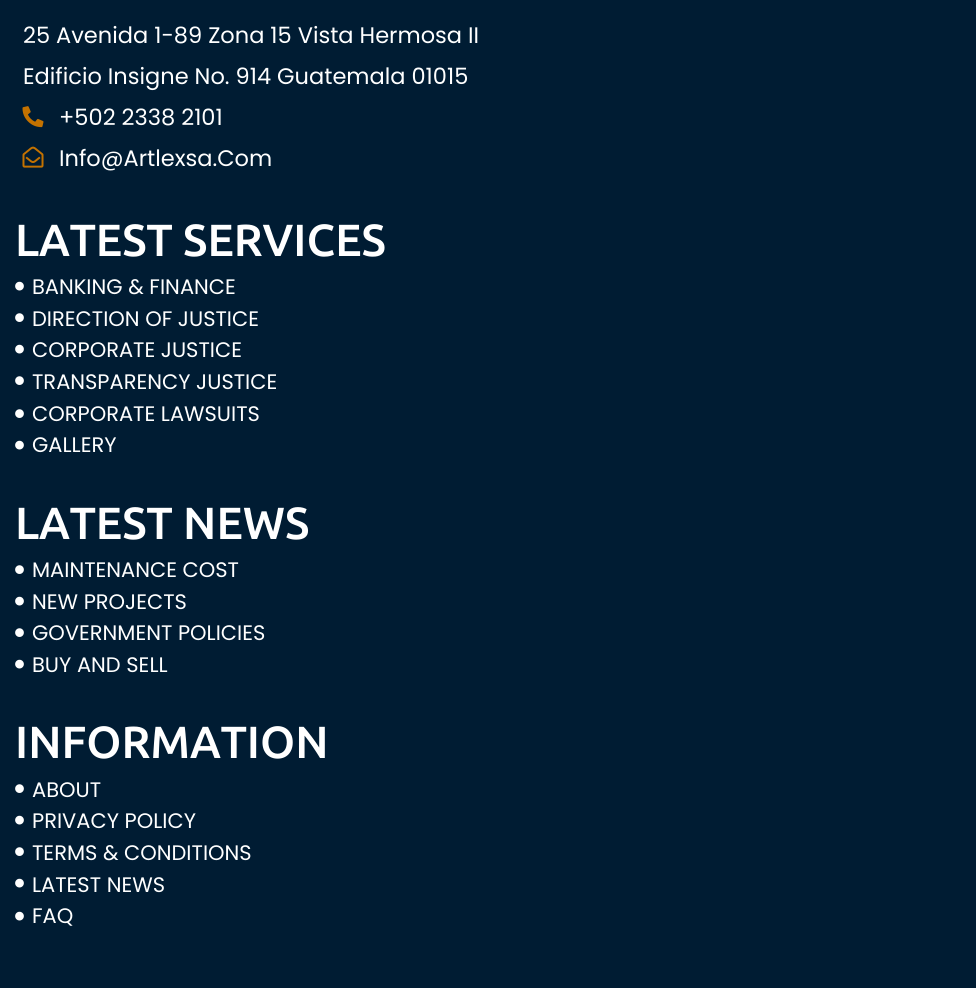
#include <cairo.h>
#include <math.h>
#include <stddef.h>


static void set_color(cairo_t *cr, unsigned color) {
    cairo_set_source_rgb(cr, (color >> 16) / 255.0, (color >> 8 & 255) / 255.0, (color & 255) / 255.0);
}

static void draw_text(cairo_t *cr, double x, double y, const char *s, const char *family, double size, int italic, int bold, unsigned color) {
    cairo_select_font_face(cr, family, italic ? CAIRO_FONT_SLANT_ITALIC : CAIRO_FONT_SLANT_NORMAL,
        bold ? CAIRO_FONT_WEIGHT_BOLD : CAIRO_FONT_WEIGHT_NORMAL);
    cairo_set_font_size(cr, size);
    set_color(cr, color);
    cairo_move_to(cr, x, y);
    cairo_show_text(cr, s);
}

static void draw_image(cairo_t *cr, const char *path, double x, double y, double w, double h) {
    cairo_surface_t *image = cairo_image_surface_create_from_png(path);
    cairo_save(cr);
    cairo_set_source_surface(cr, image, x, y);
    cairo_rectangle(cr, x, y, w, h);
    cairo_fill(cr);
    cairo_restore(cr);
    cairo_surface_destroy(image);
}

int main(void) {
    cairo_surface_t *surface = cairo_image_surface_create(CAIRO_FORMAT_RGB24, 976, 988);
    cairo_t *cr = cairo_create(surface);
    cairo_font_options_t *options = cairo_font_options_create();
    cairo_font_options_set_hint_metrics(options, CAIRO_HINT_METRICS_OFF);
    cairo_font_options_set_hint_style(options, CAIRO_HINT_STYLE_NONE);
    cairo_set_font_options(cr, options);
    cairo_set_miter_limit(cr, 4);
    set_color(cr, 0x001C33);
    cairo_paint(cr);
    draw_text(cr, 23, 43, "25 Avenida 1-89 Zona 15 Vista Hermosa II", "Poppins", 22.5, 0, 0, 0xFFFFFF);
    draw_text(cr, 23, 84, "Edificio Insigne No. 914 Guatemala 01015", "Poppins", 22.5, 0, 0, 0xFFFFFF);
    draw_image(cr, "assets/img1.png", 22, 106, 22, 22);
    draw_text(cr, 59, 125, "+502 2338 2101", "Poppins", 22.5, 0, 0, 0xFFFFFF);
    draw_image(cr, "assets/img2.png", 22, 146, 22, 22);
    draw_text(cr, 59, 166, "Info@Artlexsa.Com", "Poppins", 22.5, 0, 0, 0xFFFFFF);
    draw_text(cr, 15, 256, "LATEST SERVICES", "Ubuntu Medium", 45, 0, 0, 0xFFFFFF);
    draw_image(cr, "assets/img3.png", 15, 281, 9, 10);
    draw_text(cr, 32, 294, "BANKING & FINANCE", "Poppins", 21, 0, 0, 0xFFFFFF);
    draw_image(cr, "assets/img4.png", 15, 313, 9, 9);
    draw_text(cr, 32, 326, "DIRECTION OF JUSTICE", "Poppins", 21, 0, 0, 0xFFFFFF);
    draw_image(cr, "assets/img3.png", 15, 344, 9, 10);
    draw_text(cr, 32, 357, "CORPORATE JUSTICE", "Poppins", 21, 0, 0, 0xFFFFFF);
    draw_image(cr, "assets/img4.png", 15, 376, 9, 9);
    draw_text(cr, 32, 389, "TRANSPARENCY JUSTICE", "Poppins", 21, 0, 0, 0xFFFFFF);
    draw_image(cr, "assets/img4.png", 15, 409, 9, 9);
    draw_text(cr, 32, 421, "CORPORATE LAWSUITS", "Poppins", 21, 0, 0, 0xFFFFFF);
    draw_image(cr, "assets/img3.png", 15, 440, 9, 10);
    draw_text(cr, 32, 452, "GALLERY", "Poppins", 21, 0, 0, 0xFFFFFF);
    draw_text(cr, 15, 539, "LATEST NEWS", "Ubuntu Medium", 45, 0, 0, 0xFFFFFF);
    draw_image(cr, "assets/img4.png", 15, 565, 9, 9);
    draw_text(cr, 32, 577, "MAINTENANCE COST", "Poppins", 21, 0, 0, 0xFFFFFF);
    draw_image(cr, "assets/img3.png", 15, 596, 9, 10);
    draw_text(cr, 32, 609, "NEW PROJECTS", "Poppins", 21, 0, 0, 0xFFFFFF);
    draw_image(cr, "assets/img4.png", 15, 628, 9, 9);
    draw_text(cr, 32, 640, "GOVERNMENT POLICIES", "Poppins", 21, 0, 0, 0xFFFFFF);
    draw_image(cr, "assets/img3.png", 15, 659, 9, 10);
    draw_text(cr, 32, 672, "BUY AND SELL", "Poppins", 21, 0, 0, 0xFFFFFF);
    draw_text(cr, 15, 758, "INFORMATION", "Ubuntu Medium", 45, 0, 0, 0xFFFFFF);
    draw_image(cr, "assets/img4.png", 15, 784, 9, 9);
    draw_text(cr, 32, 797, "ABOUT", "Poppins", 21, 0, 0, 0xFFFFFF);
    draw_image(cr, "assets/img3.png", 15, 815, 9, 10);
    draw_text(cr, 32, 828, "PRIVACY POLICY", "Poppins", 21, 0, 0, 0xFFFFFF);
    draw_image(cr, "assets/img4.png", 15, 847, 9, 9);
    draw_text(cr, 32, 860, "TERMS & CONDITIONS", "Poppins", 21, 0, 0, 0xFFFFFF);
    draw_image(cr, "assets/img3.png", 15, 878, 9, 10);
    draw_text(cr, 32, 892, "LATEST NEWS", "Poppins", 21, 0, 0, 0xFFFFFF);
    draw_image(cr, "assets/img3.png", 15, 911, 9, 10);
    draw_text(cr, 32, 923, "FAQ", "Poppins", 21, 0, 0, 0xFFFFFF);
    cairo_surface_write_to_png(surface, "output.png");
    cairo_font_options_destroy(options);
    cairo_destroy(cr);
    cairo_surface_destroy(surface);
    return 0;
}
